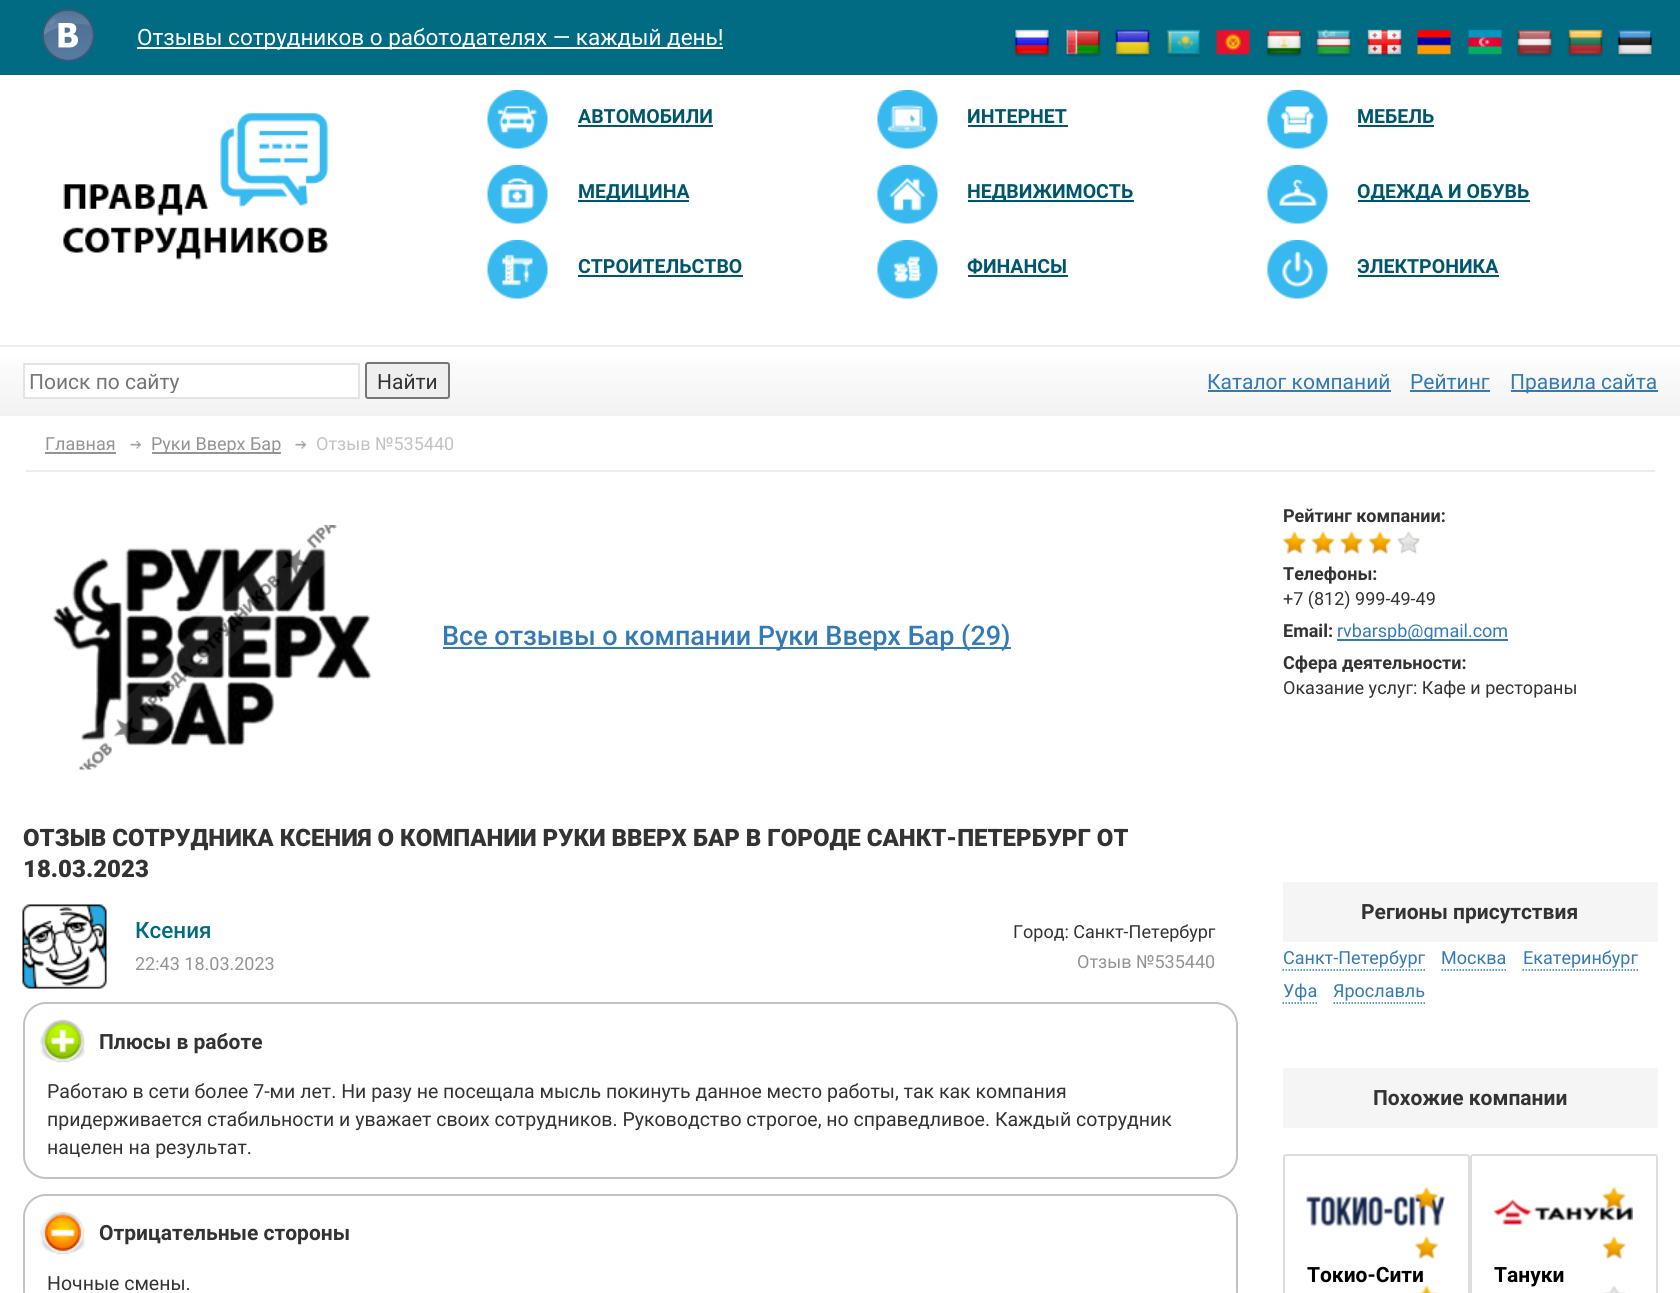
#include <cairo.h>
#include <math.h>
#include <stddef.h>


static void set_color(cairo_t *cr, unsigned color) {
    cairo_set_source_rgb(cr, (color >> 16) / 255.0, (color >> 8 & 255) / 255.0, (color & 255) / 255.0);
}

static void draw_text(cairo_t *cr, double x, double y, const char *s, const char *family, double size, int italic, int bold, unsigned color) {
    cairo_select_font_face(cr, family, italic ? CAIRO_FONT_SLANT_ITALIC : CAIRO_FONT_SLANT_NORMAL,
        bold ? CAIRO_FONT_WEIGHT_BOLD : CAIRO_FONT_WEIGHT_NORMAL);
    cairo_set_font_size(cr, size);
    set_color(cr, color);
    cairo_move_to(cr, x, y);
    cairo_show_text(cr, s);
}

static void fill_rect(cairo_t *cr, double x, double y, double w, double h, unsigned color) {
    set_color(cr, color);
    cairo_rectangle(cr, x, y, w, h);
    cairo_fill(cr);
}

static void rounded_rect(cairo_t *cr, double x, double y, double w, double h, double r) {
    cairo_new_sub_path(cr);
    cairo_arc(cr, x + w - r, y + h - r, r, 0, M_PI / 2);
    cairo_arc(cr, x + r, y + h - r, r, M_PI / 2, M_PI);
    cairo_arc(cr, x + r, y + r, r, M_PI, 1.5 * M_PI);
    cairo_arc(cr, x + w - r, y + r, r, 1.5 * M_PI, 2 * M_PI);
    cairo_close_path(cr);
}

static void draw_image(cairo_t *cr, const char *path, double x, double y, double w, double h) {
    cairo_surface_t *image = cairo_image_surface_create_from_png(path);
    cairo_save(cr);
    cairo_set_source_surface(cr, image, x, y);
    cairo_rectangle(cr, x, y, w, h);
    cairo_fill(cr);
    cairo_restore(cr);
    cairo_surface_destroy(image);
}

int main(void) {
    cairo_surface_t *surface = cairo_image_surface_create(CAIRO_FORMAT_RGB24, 1680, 1293);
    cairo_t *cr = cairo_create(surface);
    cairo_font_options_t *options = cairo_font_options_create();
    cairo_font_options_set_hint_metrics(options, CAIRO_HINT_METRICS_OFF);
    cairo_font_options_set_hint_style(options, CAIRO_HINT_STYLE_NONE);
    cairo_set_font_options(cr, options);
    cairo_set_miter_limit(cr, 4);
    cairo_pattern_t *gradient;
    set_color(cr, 0xFFFFFF);
    cairo_paint(cr);
    fill_rect(cr, 0, 0, 1680, 75, 0x006B83);
    draw_image(cr, "assets/img1.png", 42, 9, 53, 53);
    fill_rect(cr, 137, 47, 586, 2, 0xFFFFFF);
    draw_text(cr, 137, 45, "Отзывы сотрудников о работодателях — каждый день!", "Roboto", 22.5, 0, 0, 0xFFFFFF);
    draw_image(cr, "assets/img2.png", 1014, 29, 36, 28);
    draw_image(cr, "assets/img3.png", 1065, 29, 36, 28);
    draw_image(cr, "assets/img4.png", 1114, 29, 37, 28);
    draw_image(cr, "assets/img5.png", 1165, 29, 37, 28);
    draw_image(cr, "assets/img6.png", 1216, 29, 34, 26);
    draw_image(cr, "assets/img7.png", 1266, 29, 36, 28);
    draw_image(cr, "assets/img8.png", 1315, 29, 37, 28);
    draw_image(cr, "assets/img9.png", 1366, 29, 37, 28);
    draw_image(cr, "assets/img10.png", 1417, 29, 34, 26);
    draw_image(cr, "assets/img11.png", 1468, 29, 34, 26);
    draw_image(cr, "assets/img12.png", 1516, 29, 37, 28);
    draw_image(cr, "assets/img13.png", 1567, 29, 37, 28);
    draw_image(cr, "assets/img14.png", 1617, 29, 36, 28);
    draw_image(cr, "assets/img15.png", 63, 113, 266, 147);
    draw_image(cr, "assets/img16.png", 487, 90, 61, 59);
    draw_text(cr, 578, 123, "АВТОМОБИЛИ", "Roboto", 19.5, 0, 1, 0x00566D);
    fill_rect(cr, 578, 125, 135, 2, 0x00566D);
    draw_image(cr, "assets/img17.png", 877, 90, 61, 59);
    draw_text(cr, 967, 123, "ИНТЕРНЕТ", "Roboto", 19.5, 0, 1, 0x00566D);
    fill_rect(cr, 968, 125, 100, 2, 0x00566D);
    draw_image(cr, "assets/img18.png", 1267, 90, 61, 59);
    draw_text(cr, 1357, 123, "МЕБЕЛЬ", "Roboto", 19.5, 0, 1, 0x00566D);
    fill_rect(cr, 1358, 125, 76, 2, 0x00566D);
    draw_image(cr, "assets/img19.png", 487, 165, 61, 59);
    fill_rect(cr, 578, 200, 111, 2, 0x00566D);
    draw_text(cr, 578, 198, "МЕДИЦИНА", "Roboto", 19.5, 0, 1, 0x00566D);
    draw_image(cr, "assets/img20.png", 877, 165, 61, 59);
    fill_rect(cr, 968, 200, 166, 2, 0x00566D);
    draw_text(cr, 967, 198, "НЕДВИЖИМОСТЬ", "Roboto", 19.5, 0, 1, 0x00566D);
    draw_image(cr, "assets/img21.png", 1267, 165, 61, 59);
    fill_rect(cr, 1358, 200, 172, 2, 0x00566D);
    draw_text(cr, 1357, 198, "ОДЕЖДА И ОБУВЬ", "Roboto", 19.5, 0, 1, 0x00566D);
    draw_image(cr, "assets/img22.png", 487, 240, 61, 59);
    draw_text(cr, 578, 273, "СТРОИТЕЛЬСТВО", "Roboto", 19.5, 0, 1, 0x00566D);
    fill_rect(cr, 578, 275, 165, 2, 0x00566D);
    draw_image(cr, "assets/img23.png", 877, 240, 61, 59);
    draw_text(cr, 967, 273, "ФИНАНСЫ", "Roboto", 19.5, 0, 1, 0x00566D);
    fill_rect(cr, 968, 275, 100, 2, 0x00566D);
    draw_image(cr, "assets/img24.png", 1267, 240, 61, 59);
    draw_text(cr, 1357, 273, "ЭЛЕКТРОНИКА", "Roboto", 19.5, 0, 1, 0x00566D);
    fill_rect(cr, 1358, 275, 141, 2, 0x00566D);
    gradient = cairo_pattern_create_linear(840, 346, 840, 416);
    cairo_pattern_add_color_stop_rgba(gradient, 0, 1, 1, 1, 1);
    cairo_pattern_add_color_stop_rgba(gradient, 1, 0.949, 0.949, 0.949, 1);
    cairo_set_source(cr, gradient);
    cairo_pattern_destroy(gradient);
    cairo_rectangle(cr, 0, 359, 1680, 57);
    cairo_fill(cr);
    fill_rect(cr, 0, 345, 1680, 2, 0xEDEDED);
    set_color(cr, 0xFFFFFF);
    cairo_rectangle(cr, 24, 364, 335, 34);
    cairo_fill_preserve(cr);
    set_color(cr, 0xE3E3E3);
    cairo_stroke(cr);
    cairo_save(cr);
    cairo_rectangle(cr, 29, 369, 325, 24);
    cairo_clip(cr);
    draw_text(cr, 29, 389, "Поиск по сайту", "Roboto", 21, 0, 0, 0x757575);
    cairo_restore(cr);
    set_color(cr, 0xEFEFEF);
    rounded_rect(cr, 366, 363, 83, 35, 2);
    cairo_fill_preserve(cr);
    set_color(cr, 0x767676);
    cairo_stroke(cr);
    draw_text(cr, 377, 389, "Найти", "Roboto", 21, 0, 0, 0x333333);
    draw_text(cr, 1207, 389, "Каталог компаний", "Roboto", 21, 0, 0, 0x337AB7);
    fill_rect(cr, 1208, 390, 183, 2, 0x337AB7);
    draw_text(cr, 1410, 389, "Рейтинг", "Roboto", 21, 0, 0, 0x337AB7);
    fill_rect(cr, 1410, 390, 80, 2, 0x337AB7);
    fill_rect(cr, 1511, 390, 147, 2, 0x337AB7);
    draw_text(cr, 1510, 389, "Правила сайта", "Roboto", 21, 0, 0, 0x337AB7);
    fill_rect(cr, 26, 470, 1629, 2, 0xEDEDED);
    draw_text(cr, 45, 450, "Главная", "Roboto", 18, 0, 0, 0x949494);
    fill_rect(cr, 45, 452, 71, 2, 0x949494);
    draw_image(cr, "assets/img25.png", 130, 441, 11, 8);
    fill_rect(cr, 152, 452, 129, 2, 0x949494);
    draw_text(cr, 151, 450, "Руки Вверх Бар", "Roboto", 18, 0, 0, 0x949494);
    draw_image(cr, "assets/img26.png", 295, 441, 11, 8);
    draw_text(cr, 316, 450, "Отзыв №535440", "Roboto", 18, 0, 0, 0xC3C3C3);
    draw_image(cr, "assets/img27.png", 52, 525, 320, 245);
    fill_rect(cr, 443, 647, 568, 2, 0x337AB7);
    draw_text(cr, 442, 645, "Все отзывы о компании Руки Вверх Бар (29)", "Roboto Medium", 27, 0, 0, 0x337AB7);
    draw_text(cr, 1283, 522, "Рейтинг компании:", "Roboto", 18, 0, 1, 0x333333);
    draw_image(cr, "assets/img28.png", 1282, 531, 25, 23);
    draw_image(cr, "assets/img29.png", 1311, 531, 24, 23);
    draw_image(cr, "assets/img28.png", 1339, 531, 25, 23);
    draw_image(cr, "assets/img29.png", 1368, 531, 24, 23);
    draw_image(cr, "assets/img30.png", 1397, 531, 24, 23);
    draw_text(cr, 1283, 580, "Телефоны:", "Roboto", 18, 0, 1, 0x333333);
    draw_text(cr, 1283, 605, "+7 (812) 999-49-49", "Roboto", 18, 0, 0, 0x333333);
    draw_text(cr, 1283, 637, "Email:", "Roboto", 18, 0, 1, 0x333333);
    fill_rect(cr, 1337, 639, 171, 2, 0x337AB7);
    draw_text(cr, 1337, 637, "rvbarspb@gmail.com", "Roboto", 18, 0, 0, 0x337AB7);
    draw_text(cr, 1283, 669, "Сфера деятельности:", "Roboto", 18, 0, 1, 0x333333);
    draw_text(cr, 1283, 694, "Оказание услуг: Кафе и рестораны", "Roboto", 18, 0, 0, 0x333333);
    draw_text(cr, 23, 846, "ОТЗЫВ СОТРУДНИКА КСЕНИЯ О КОМПАНИИ РУКИ ВВЕРХ БАР В ГОРОДЕ САНКТ-ПЕТЕРБУРГ ОТ", "Roboto Black", 24, 0, 0, 0x333333);
    draw_text(cr, 23, 877, "18.03.2023", "Roboto Black", 24, 0, 0, 0x333333);
    draw_image(cr, "assets/img31.png", 22, 904, 85, 85);
    draw_text(cr, 135, 938, "Ксения", "Roboto Medium", 22.5, 0, 0, 0x006B83);
    draw_text(cr, 135, 970, "22:43 18.03.2023", "Roboto", 18, 0, 0, 0x949494);
    draw_text(cr, 1013, 938, "Город: Санкт-Петербург", "Roboto", 18, 0, 0, 0x333333);
    draw_text(cr, 1077, 968, "Отзыв №535440", "Roboto", 18, 0, 0, 0x949494);
    rounded_rect(cr, 24, 1003, 1213, 175, 22);
    set_color(cr, 0xC2C2C2);
    cairo_stroke(cr);
    draw_image(cr, "assets/img32.png", 40, 1019, 45, 44);
    draw_text(cr, 99, 1049, "Плюсы в работе", "Roboto", 21, 0, 1, 0x333333);
    draw_text(cr, 47, 1098, "Работаю в сети более 7-ми лет. Ни разу не посещала мысль покинуть данное место работы, так как компания", "Roboto", 19.5, 0, 0, 0x333333);
    draw_text(cr, 47, 1126, "придерживается стабильности и уважает своих сотрудников. Руководство строгое, но справедливое. Каждый сотрудник", "Roboto", 19.5, 0, 0, 0x333333);
    draw_text(cr, 47, 1154, "нацелен на результат.", "Roboto", 19.5, 0, 0, 0x333333);
    rounded_rect(cr, 24, 1195, 1213, 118, 22);
    set_color(cr, 0xC2C2C2);
    cairo_stroke(cr);
    draw_image(cr, "assets/img33.png", 40, 1211, 45, 44);
    draw_text(cr, 99, 1240, "Отрицательные стороны", "Roboto", 21, 0, 1, 0x333333);
    draw_text(cr, 47, 1290, "Ночные смены.", "Roboto", 19.5, 0, 0, 0x333333);
    fill_rect(cr, 1283, 882, 375, 60, 0xF5F5F5);
    draw_text(cr, 1361, 919, "Регионы присутствия", "Roboto", 21, 0, 1, 0x333333);
    draw_text(cr, 1283, 964, "Санкт-Петербург", "Roboto", 18, 0, 0, 0x337AB7);
    cairo_new_path(cr);
    cairo_move_to(cr, 1282.5, 970);
    cairo_line_to(cr, 1425, 970);
    cairo_set_line_width(cr, 1.5);
    cairo_set_dash(cr, (double[]){1.5, 1.5}, 2, 0);
    cairo_stroke(cr);
    draw_text(cr, 1441, 964, "Москва", "Roboto", 18, 0, 0, 0x337AB7);
    cairo_new_path(cr);
    cairo_move_to(cr, 1441.5, 970);
    cairo_line_to(cr, 1506, 970);
    cairo_stroke(cr);
    draw_text(cr, 1523, 964, "Екатеринбург", "Roboto", 18, 0, 0, 0x337AB7);
    cairo_new_path(cr);
    cairo_move_to(cr, 1522.5, 970);
    cairo_line_to(cr, 1638, 970);
    cairo_stroke(cr);
    draw_text(cr, 1283, 997, "Уфа", "Roboto", 18, 0, 0, 0x337AB7);
    cairo_new_path(cr);
    cairo_move_to(cr, 1282.5, 1003);
    cairo_line_to(cr, 1317, 1003);
    cairo_stroke(cr);
    draw_text(cr, 1333, 997, "Ярославль", "Roboto", 18, 0, 0, 0x337AB7);
    cairo_new_path(cr);
    cairo_move_to(cr, 1333.5, 1003);
    cairo_line_to(cr, 1425, 1003);
    cairo_stroke(cr);
    fill_rect(cr, 1283, 1068, 375, 60, 0xF5F5F5);
    draw_text(cr, 1373, 1105, "Похожие компании", "Roboto", 21, 0, 1, 0x333333);
    rounded_rect(cr, 1284, 1155, 185, 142, 2);
    set_color(cr, 0xDDDDDD);
    cairo_set_line_width(cr, 2);
    cairo_set_dash(cr, NULL, 0, 0);
    cairo_stroke(cr);
    draw_image(cr, "assets/img37.png", 1306, 1196, 139, 31);
    draw_image(cr, "assets/img34.png", 1414, 1186, 25, 24);
    draw_image(cr, "assets/img35.png", 1414, 1236, 25, 23);
    draw_image(cr, "assets/img36.png", 1415, 1285, 23, 8);
    draw_text(cr, 1307, 1282, "Токио-Сити", "Roboto", 21, 0, 1, 0x000000);
    rounded_rect(cr, 1471, 1155, 186, 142, 2);
    set_color(cr, 0xDDDDDD);
    cairo_stroke(cr);
    draw_image(cr, "assets/img41.png", 1493, 1199, 140, 26);
    draw_image(cr, "assets/img38.png", 1602, 1186, 25, 24);
    draw_image(cr, "assets/img39.png", 1602, 1236, 25, 23);
    draw_image(cr, "assets/img40.png", 1603, 1285, 23, 8);
    draw_text(cr, 1494, 1282, "Тануки", "Roboto", 21, 0, 1, 0x000000);
    cairo_surface_write_to_png(surface, "output.png");
    cairo_font_options_destroy(options);
    cairo_destroy(cr);
    cairo_surface_destroy(surface);
    return 0;
}
